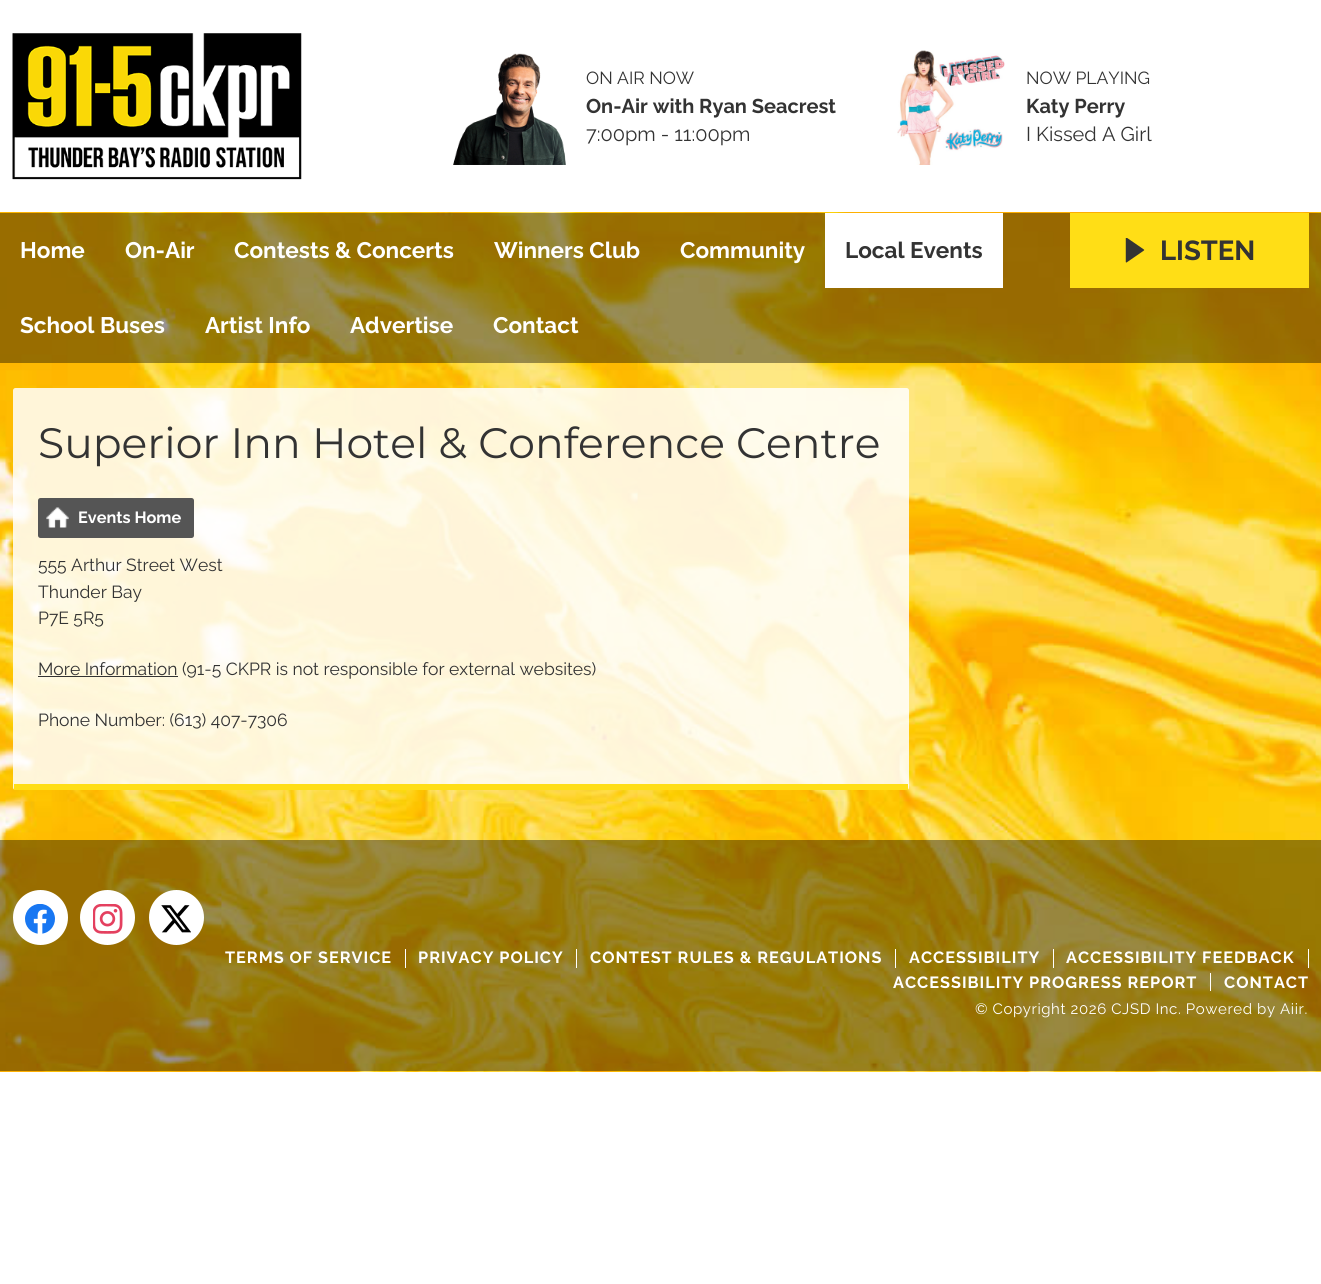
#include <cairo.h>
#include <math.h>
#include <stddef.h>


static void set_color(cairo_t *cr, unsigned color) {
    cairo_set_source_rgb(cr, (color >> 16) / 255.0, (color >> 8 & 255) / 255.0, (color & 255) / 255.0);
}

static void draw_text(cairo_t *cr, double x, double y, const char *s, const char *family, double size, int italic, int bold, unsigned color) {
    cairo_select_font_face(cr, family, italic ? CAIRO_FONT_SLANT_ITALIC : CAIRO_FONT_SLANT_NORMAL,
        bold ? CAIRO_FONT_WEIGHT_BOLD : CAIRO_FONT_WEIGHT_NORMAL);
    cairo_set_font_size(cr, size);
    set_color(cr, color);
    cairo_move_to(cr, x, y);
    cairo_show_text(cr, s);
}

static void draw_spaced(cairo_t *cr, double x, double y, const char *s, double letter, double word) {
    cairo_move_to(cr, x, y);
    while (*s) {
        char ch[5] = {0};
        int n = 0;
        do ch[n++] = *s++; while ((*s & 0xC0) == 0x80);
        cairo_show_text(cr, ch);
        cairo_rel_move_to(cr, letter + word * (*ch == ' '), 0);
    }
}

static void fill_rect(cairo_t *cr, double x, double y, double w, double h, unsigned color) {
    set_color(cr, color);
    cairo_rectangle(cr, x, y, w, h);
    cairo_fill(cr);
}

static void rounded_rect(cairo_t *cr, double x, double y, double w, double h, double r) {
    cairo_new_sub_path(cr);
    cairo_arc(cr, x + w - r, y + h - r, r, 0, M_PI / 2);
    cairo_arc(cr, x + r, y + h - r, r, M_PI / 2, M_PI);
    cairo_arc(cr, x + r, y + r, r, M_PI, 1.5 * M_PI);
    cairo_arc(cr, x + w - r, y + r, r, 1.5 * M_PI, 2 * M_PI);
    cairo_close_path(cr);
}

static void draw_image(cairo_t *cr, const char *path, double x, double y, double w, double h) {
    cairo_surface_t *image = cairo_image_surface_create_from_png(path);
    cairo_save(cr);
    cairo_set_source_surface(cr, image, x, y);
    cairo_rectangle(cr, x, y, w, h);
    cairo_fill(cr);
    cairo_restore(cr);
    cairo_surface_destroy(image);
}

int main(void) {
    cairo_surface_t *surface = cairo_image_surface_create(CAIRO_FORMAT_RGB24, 1321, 1284);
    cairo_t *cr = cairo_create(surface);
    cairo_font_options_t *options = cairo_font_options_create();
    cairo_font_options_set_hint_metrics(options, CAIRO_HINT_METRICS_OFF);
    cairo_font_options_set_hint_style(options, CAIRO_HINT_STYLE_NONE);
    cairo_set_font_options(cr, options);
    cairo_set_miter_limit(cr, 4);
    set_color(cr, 0xFFFFFF);
    cairo_paint(cr);
    draw_image(cr, "assets/img1.png", 12, 33, 290, 147);
    draw_image(cr, "assets/img2.png", 453, 53, 113, 112);
    draw_text(cr, 586, 84, "ON AIR NOW", "Raleway", 17.5, 0, 0, 0x333333);
    draw_text(cr, 586, 113, "On-Air with Ryan Seacrest", "Raleway", 20, 0, 1, 0x333333);
    draw_text(cr, 586, 141, "7:00pm - 11:00pm", "Raleway", 20, 0, 0, 0x333333);
    draw_image(cr, "assets/img3.png", 897, 50, 108, 115);
    draw_text(cr, 1026, 84, "NOW PLAYING", "Raleway", 17.5, 0, 0, 0x333333);
    draw_text(cr, 1026, 113, "Katy Perry", "Raleway", 20, 0, 1, 0x333333);
    draw_text(cr, 1026, 141, "I Kissed A Girl", "Raleway", 20, 0, 0, 0x333333);
    draw_image(cr, "assets/img4.png", 0, 212, 1321, 860);
    cairo_set_source_rgba(cr, 0, 0, 0, 0.4);
    cairo_rectangle(cr, 0, 213, 1321, 150);
    cairo_fill(cr);
    draw_text(cr, 20, 258, "Home", "Raleway", 22.5, 0, 1, 0xFFFFFF);
    draw_text(cr, 125, 258, "On-Air", "Raleway", 22.5, 0, 1, 0xFFFFFF);
    draw_text(cr, 234, 258, "Contests & Concerts", "Raleway", 22.5, 0, 1, 0xFFFFFF);
    draw_text(cr, 494, 258, "Winners Club", "Raleway", 22.5, 0, 1, 0xFFFFFF);
    draw_text(cr, 680, 258, "Community", "Raleway", 22.5, 0, 1, 0xFFFFFF);
    fill_rect(cr, 825, 213, 178, 75, 0xFFFFFF);
    draw_text(cr, 845, 258, "Local Events", "Raleway", 22.5, 0, 1, 0x333333);
    draw_text(cr, 20, 333, "School Buses", "Raleway", 22.5, 0, 1, 0xFFFFFF);
    draw_text(cr, 205, 333, "Artist Info", "Raleway", 22.5, 0, 1, 0xFFFFFF);
    draw_text(cr, 350, 333, "Advertise", "Raleway", 22.5, 0, 1, 0xFFFFFF);
    draw_text(cr, 493, 333, "Contact", "Raleway", 22.5, 0, 1, 0xFFFFFF);
    fill_rect(cr, 1070, 213, 239, 75, 0xFFDE16);
    draw_image(cr, "assets/img5.png", 1125, 238, 20, 25);
    draw_text(cr, 1160, 260, "LISTEN", "Raleway", 27.5, 0, 1, 0x333333);
    cairo_set_source_rgba(cr, 1, 1, 1, 0.85);
    rounded_rect(cr, 13, 388, 896, 402, 2.5);
    cairo_fill(cr);
    fill_rect(cr, 14, 784, 894, 6, 0xFFDE16);
    draw_text(cr, 38, 458, "Superior Inn Hotel & Conference Centre", "Montserrat", 42.5, 0, 0, 0x333333);
    set_color(cr, 0x555555);
    rounded_rect(cr, 38, 498, 156, 40, 2.5);
    cairo_fill(cr);
    draw_image(cr, "assets/img6.png", 46, 507, 23, 21);
    draw_text(cr, 78, 523, "Events Home", "Raleway", 16.25, 0, 1, 0xFFFFFF);
    draw_text(cr, 38, 571, "555 Arthur Street West", "Raleway", 17.5, 0, 0, 0x333333);
    draw_text(cr, 38, 598, "Thunder Bay", "Raleway", 17.5, 0, 0, 0x333333);
    draw_text(cr, 38, 624, "P7E 5R5", "Raleway", 17.5, 0, 0, 0x333333);
    fill_rect(cr, 38, 676, 140, 1, 0x333333);
    draw_text(cr, 38, 675, "More Information (91-5 CKPR is not responsible for external websites)", "Raleway", 17.5, 0, 0, 0x333333);
    draw_text(cr, 38, 726, "Phone Number: (613) 407-7306", "Raleway", 17.5, 0, 0, 0x333333);
    cairo_set_source_rgba(cr, 0, 0, 0, 0.4);
    cairo_rectangle(cr, 0, 840, 1321, 231);
    cairo_fill(cr);
    set_color(cr, 0xFFFFFF);
    cairo_arc(cr, 40.5, 917.5, 27.5, 0, 2 * M_PI);
    cairo_fill(cr);
    draw_image(cr, "assets/img7.png", 25, 904, 30, 30);
    cairo_arc(cr, 107.5, 917.5, 27.5, 0, 2 * M_PI);
    cairo_fill(cr);
    draw_image(cr, "assets/img8.png", 93, 904, 30, 30);
    cairo_arc(cr, 176.5, 917.5, 27.5, 0, 2 * M_PI);
    cairo_fill(cr);
    draw_image(cr, "assets/img9.png", 161, 905, 30, 28);
    cairo_select_font_face(cr, "Raleway", CAIRO_FONT_SLANT_NORMAL, CAIRO_FONT_WEIGHT_BOLD);
    cairo_set_font_size(cr, 16.25);
    draw_spaced(cr, 225, 963, "TERMS OF SERVICE", 1, 0);
    fill_rect(cr, 405, 949, 1, 19, 0xFFFFFF);
    draw_spaced(cr, 418, 963, "PRIVACY POLICY", 1, 0);
    fill_rect(cr, 576, 949, 1, 19, 0xFFFFFF);
    draw_spaced(cr, 590, 963, "CONTEST RULES & REGULATIONS", 1, 0);
    fill_rect(cr, 895, 949, 1, 19, 0xFFFFFF);
    draw_spaced(cr, 909, 963, "ACCESSIBILITY", 1, 0);
    fill_rect(cr, 1053, 949, 1, 19, 0xFFFFFF);
    draw_spaced(cr, 1066, 963, "ACCESSIBILITY FEEDBACK", 1, 0);
    fill_rect(cr, 1308, 949, 1, 19, 0xFFFFFF);
    draw_spaced(cr, 893, 988, "ACCESSIBILITY PROGRESS REPORT", 1, 0);
    fill_rect(cr, 1210, 973, 1, 18, 0xFFFFFF);
    draw_spaced(cr, 1224, 988, "CONTACT", 1, 0);
    cairo_select_font_face(cr, "Raleway", CAIRO_FONT_SLANT_NORMAL, CAIRO_FONT_WEIGHT_NORMAL);
    cairo_set_font_size(cr, 15);
    draw_spaced(cr, 975, 1014, "© Copyright 2026 CJSD Inc. Powered by Aiir.", 0.6, 0);
    cairo_surface_write_to_png(surface, "output.png");
    cairo_font_options_destroy(options);
    cairo_destroy(cr);
    cairo_surface_destroy(surface);
    return 0;
}
